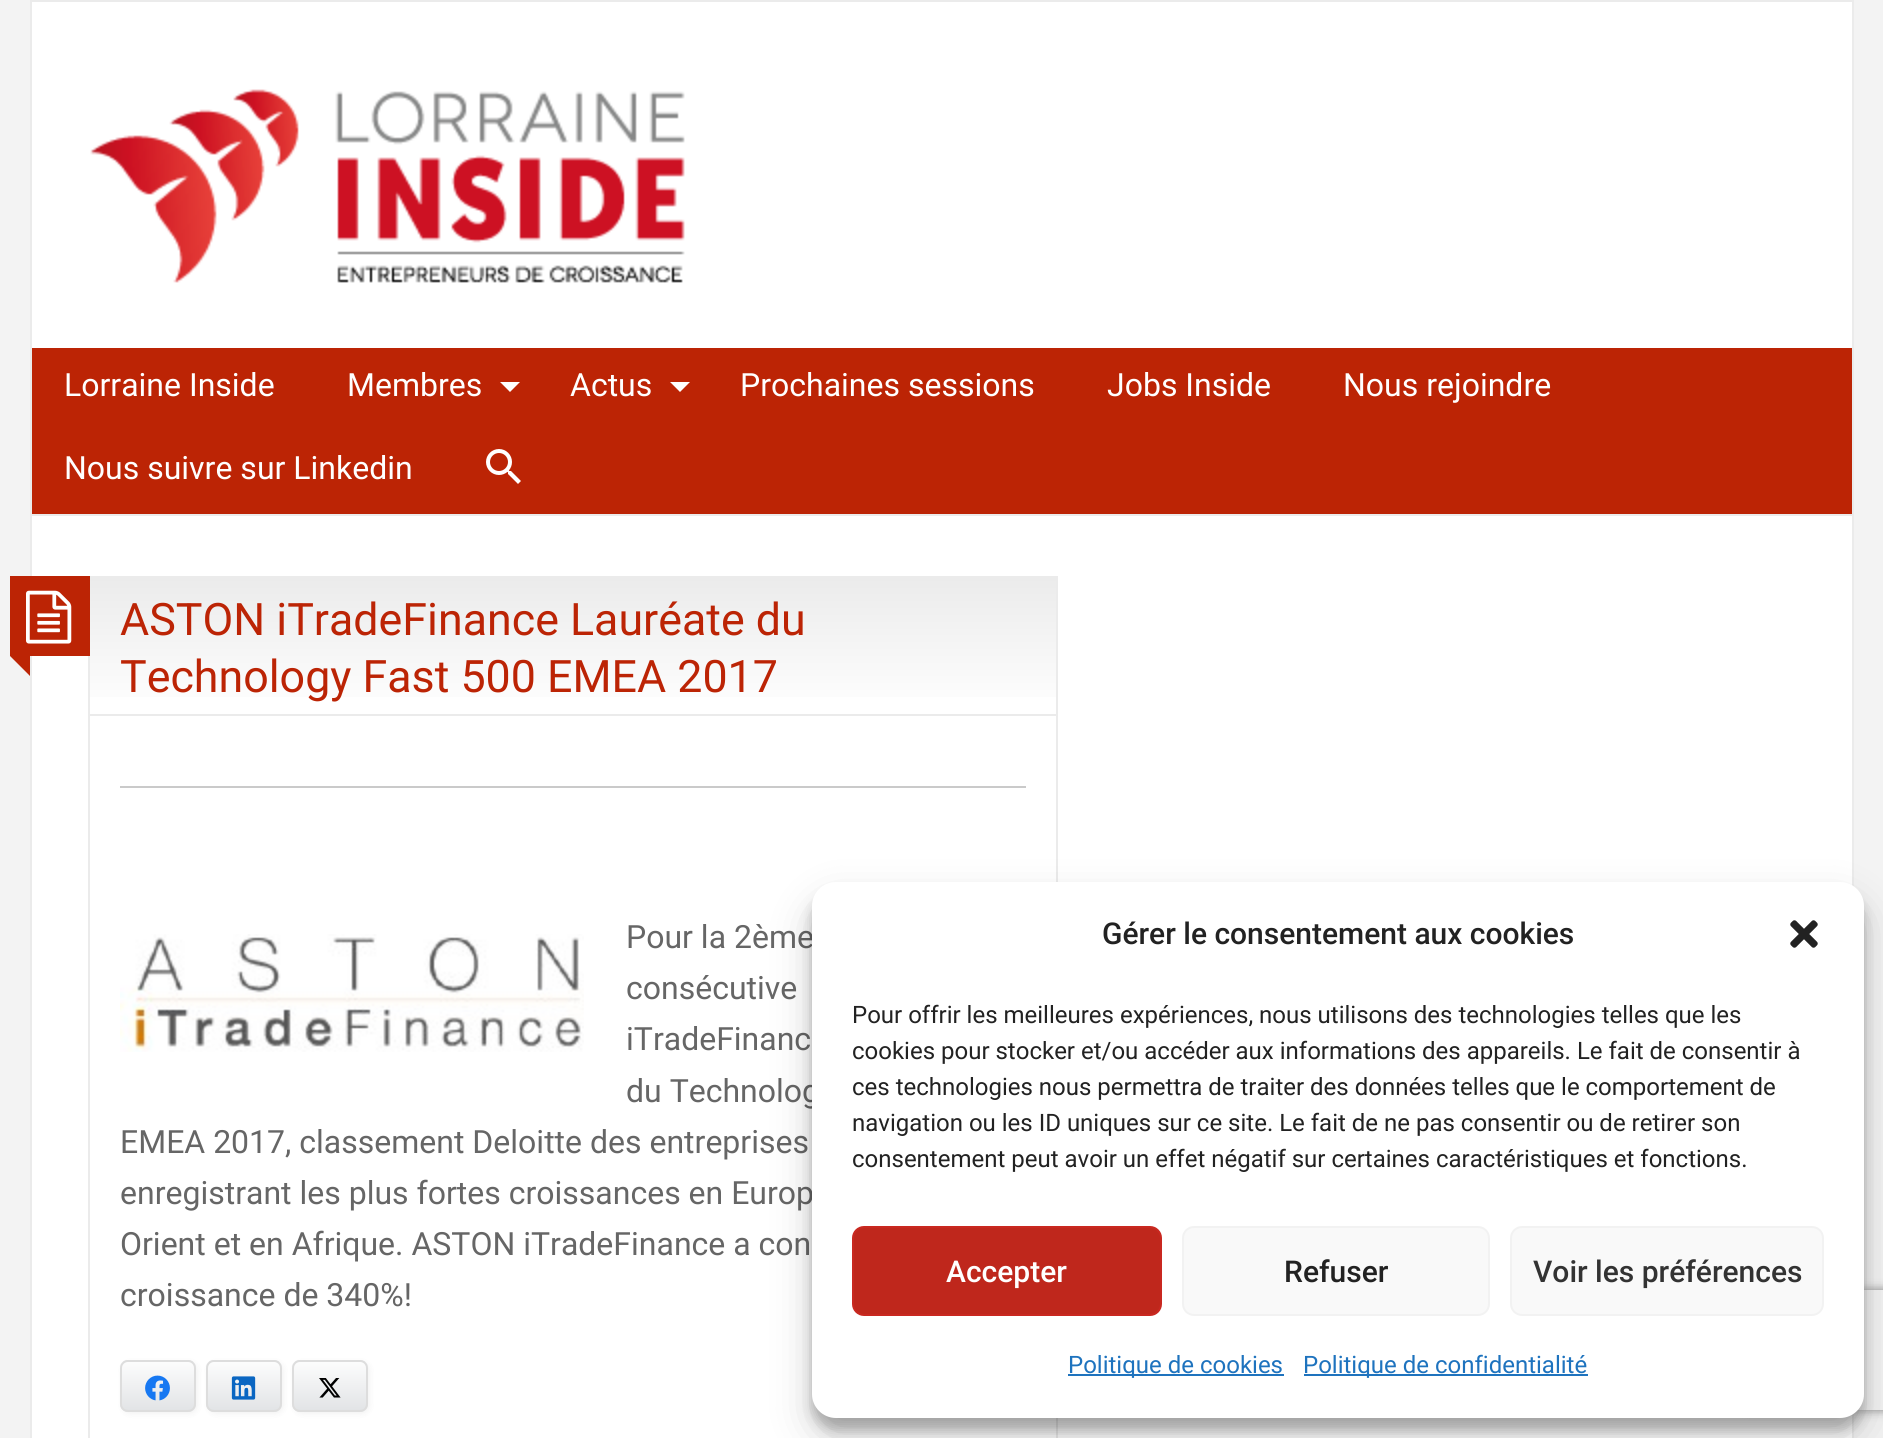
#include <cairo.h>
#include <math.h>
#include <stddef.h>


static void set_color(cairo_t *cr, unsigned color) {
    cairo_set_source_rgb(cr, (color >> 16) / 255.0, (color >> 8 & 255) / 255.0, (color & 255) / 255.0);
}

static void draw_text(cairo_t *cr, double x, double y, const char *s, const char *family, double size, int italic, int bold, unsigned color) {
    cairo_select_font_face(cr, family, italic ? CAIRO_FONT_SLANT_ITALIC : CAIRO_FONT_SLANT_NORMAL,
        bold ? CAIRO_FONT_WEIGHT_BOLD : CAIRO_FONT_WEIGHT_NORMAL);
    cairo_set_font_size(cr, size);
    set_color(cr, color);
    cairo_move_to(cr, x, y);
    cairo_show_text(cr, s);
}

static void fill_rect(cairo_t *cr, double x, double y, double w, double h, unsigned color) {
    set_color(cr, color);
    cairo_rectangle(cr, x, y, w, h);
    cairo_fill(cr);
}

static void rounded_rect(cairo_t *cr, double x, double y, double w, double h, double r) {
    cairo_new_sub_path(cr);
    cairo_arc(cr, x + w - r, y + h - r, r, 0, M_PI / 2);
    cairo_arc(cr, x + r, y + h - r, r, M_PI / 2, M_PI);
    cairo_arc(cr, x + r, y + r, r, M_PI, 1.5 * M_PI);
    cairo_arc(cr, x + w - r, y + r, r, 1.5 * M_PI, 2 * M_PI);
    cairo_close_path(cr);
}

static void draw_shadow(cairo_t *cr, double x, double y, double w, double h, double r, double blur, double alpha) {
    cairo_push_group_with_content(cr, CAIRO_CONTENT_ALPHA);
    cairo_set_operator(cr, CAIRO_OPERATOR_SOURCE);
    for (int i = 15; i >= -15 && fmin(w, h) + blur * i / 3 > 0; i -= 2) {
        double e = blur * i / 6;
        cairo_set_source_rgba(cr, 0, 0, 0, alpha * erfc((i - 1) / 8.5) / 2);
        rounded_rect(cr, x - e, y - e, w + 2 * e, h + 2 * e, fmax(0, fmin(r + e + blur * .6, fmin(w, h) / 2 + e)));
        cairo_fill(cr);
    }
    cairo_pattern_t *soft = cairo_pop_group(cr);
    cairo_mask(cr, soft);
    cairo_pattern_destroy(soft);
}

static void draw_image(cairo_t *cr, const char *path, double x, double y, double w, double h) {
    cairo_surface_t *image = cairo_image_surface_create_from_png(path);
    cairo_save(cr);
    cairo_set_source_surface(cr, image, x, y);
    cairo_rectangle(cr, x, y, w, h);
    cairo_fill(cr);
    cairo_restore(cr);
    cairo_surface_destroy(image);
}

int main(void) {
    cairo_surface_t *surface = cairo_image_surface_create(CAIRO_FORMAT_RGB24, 1883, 1438);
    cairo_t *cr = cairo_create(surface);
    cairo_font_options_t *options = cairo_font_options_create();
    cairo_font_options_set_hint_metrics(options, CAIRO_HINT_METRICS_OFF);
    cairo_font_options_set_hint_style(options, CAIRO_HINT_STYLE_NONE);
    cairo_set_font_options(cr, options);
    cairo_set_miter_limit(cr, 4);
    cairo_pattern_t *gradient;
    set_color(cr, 0xF3F3F3);
    cairo_paint(cr);
    set_color(cr, 0xFFFFFF);
    cairo_rectangle(cr, 31, 1, 1822, 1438);
    cairo_fill_preserve(cr);
    set_color(cr, 0xEBEBEB);
    cairo_stroke(cr);
    draw_image(cr, "assets/img1.png", 90, 89, 595, 194);
    fill_rect(cr, 32, 348, 1820, 166, 0xBC2405);
    draw_text(cr, 64, 396, "Lorraine Inside", "Roboto", 32, 0, 0, 0xFFFFFF);
    draw_text(cr, 347, 396, "Membres", "Roboto", 32, 0, 0, 0xFFFFFF);
    cairo_new_path(cr);
    cairo_move_to(cr, 500, 382);
    cairo_line_to(cr, 520, 382);
    cairo_line_to(cr, 510, 392);
    cairo_close_path(cr);
    cairo_fill(cr);
    draw_text(cr, 570, 396, "Actus", "Roboto", 32, 0, 0, 0xFFFFFF);
    cairo_new_path(cr);
    cairo_move_to(cr, 670, 382);
    cairo_line_to(cr, 690, 382);
    cairo_line_to(cr, 680, 392);
    cairo_close_path(cr);
    cairo_fill(cr);
    draw_text(cr, 740, 396, "Prochaines sessions", "Roboto", 32, 0, 0, 0xFFFFFF);
    draw_text(cr, 1107, 396, "Jobs Inside", "Roboto", 32, 0, 0, 0xFFFFFF);
    draw_text(cr, 1343, 396, "Nous rejoindre", "Roboto", 32, 0, 0, 0xFFFFFF);
    draw_text(cr, 64, 479, "Nous suivre sur Linkedin", "Roboto", 32, 0, 0, 0xFFFFFF);
    draw_image(cr, "assets/img2.png", 486, 449, 35, 35);
    fill_rect(cr, 32, 514, 1820, 2, 0xEBEBEB);
    cairo_rectangle(cr, 89, 577, 968, 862);
    cairo_stroke(cr);
    fill_rect(cr, 10, 576, 80, 80, 0xBC2405);
    draw_image(cr, "assets/img3.png", 26, 590, 46, 54);
    cairo_new_path(cr);
    cairo_move_to(cr, 10, 656);
    cairo_line_to(cr, 30, 656);
    cairo_line_to(cr, 30, 676);
    cairo_close_path(cr);
    cairo_fill(cr);
    gradient = cairo_pattern_create_linear(90, 578, 90, 714);
    cairo_pattern_add_color_stop_rgba(gradient, 0, 0.922, 0.922, 0.922, 1);
    cairo_pattern_add_color_stop_rgba(gradient, 1, 1, 1, 1, 1);
    cairo_set_source(cr, gradient);
    cairo_pattern_destroy(gradient);
    cairo_rectangle(cr, 90, 578, 966, 119);
    cairo_fill(cr);
    gradient = cairo_pattern_create_linear(90, 714, 90, 850);
    cairo_pattern_add_color_stop_rgba(gradient, 0, 0.922, 0.922, 0.922, 1);
    cairo_pattern_add_color_stop_rgba(gradient, 1, 1, 1, 1, 1);
    cairo_set_source(cr, gradient);
    cairo_pattern_destroy(gradient);
    cairo_rectangle(cr, 90, 714, 966, 2);
    cairo_fill(cr);
    draw_text(cr, 120, 635, "ASTON iTradeFinance Lauréate du", "Roboto", 44.75, 0, 0, 0xBC2405);
    draw_text(cr, 120, 692, "Technology Fast 500 EMEA 2017", "Roboto", 44.75, 0, 0, 0xBC2405);
    fill_rect(cr, 120, 786, 906, 2, 0xCACACA);
    draw_image(cr, "assets/img4.png", 120, 934, 464, 118);
    draw_text(cr, 626, 948, "Pour la 2ème", "Roboto", 32, 0, 0, 0x666666);
    draw_text(cr, 626, 999, "consécutive", "Roboto", 32, 0, 0, 0x666666);
    draw_text(cr, 626, 1050, "iTradeFinanc", "Roboto", 32, 0, 0, 0x666666);
    draw_text(cr, 626, 1102, "du Technolog", "Roboto", 32, 0, 0, 0x666666);
    draw_text(cr, 120, 1153, "EMEA 2017, classement Deloitte des entreprises", "Roboto", 32, 0, 0, 0x666666);
    draw_text(cr, 120, 1204, "enregistrant les plus fortes croissances en Europ", "Roboto", 32, 0, 0, 0x666666);
    draw_text(cr, 120, 1255, "Orient et en Afrique. ASTON iTradeFinance a con", "Roboto", 32, 0, 0, 0x666666);
    draw_text(cr, 120, 1306, "croissance de 340%!", "Roboto", 32, 0, 0, 0x666666);
    set_color(cr, 0x000000);
    draw_shadow(cr, 122, 1362, 76, 52, 8, 3, 0.05);
    set_color(cr, 0xE2E4E6);
    rounded_rect(cr, 120, 1360, 76, 52, 8);
    cairo_fill(cr);
    cairo_save(cr);
    rounded_rect(cr, 120, 1360, 76, 52, 8);
    cairo_clip(cr);
    gradient = cairo_pattern_create_linear(158, 1362, 158, 1410);
    cairo_pattern_add_color_stop_rgba(gradient, 0, 1, 1, 1, 0.9);
    cairo_pattern_add_color_stop_rgba(gradient, 1, 1, 1, 1, 0);
    cairo_set_source(cr, gradient);
    cairo_pattern_destroy(gradient);
    cairo_rectangle(cr, 120, 1362, 76, 47);
    cairo_fill(cr);
    cairo_restore(cr);
    rounded_rect(cr, 121, 1361, 74, 50, 7);
    set_color(cr, 0xDDDDDD);
    cairo_stroke(cr);
    draw_image(cr, "assets/img5.png", 145, 1375, 25, 26);
    set_color(cr, 0x000000);
    draw_shadow(cr, 208, 1362, 76, 52, 8, 3, 0.05);
    set_color(cr, 0xE2E4E6);
    rounded_rect(cr, 206, 1360, 76, 52, 8);
    cairo_fill(cr);
    cairo_save(cr);
    rounded_rect(cr, 206, 1360, 76, 52, 8);
    cairo_clip(cr);
    gradient = cairo_pattern_create_linear(244, 1362, 244, 1410);
    cairo_pattern_add_color_stop_rgba(gradient, 0, 1, 1, 1, 0.9);
    cairo_pattern_add_color_stop_rgba(gradient, 1, 1, 1, 1, 0);
    cairo_set_source(cr, gradient);
    cairo_pattern_destroy(gradient);
    cairo_rectangle(cr, 206, 1362, 76, 47);
    cairo_fill(cr);
    cairo_restore(cr);
    rounded_rect(cr, 207, 1361, 74, 50, 7);
    set_color(cr, 0xDDDDDD);
    cairo_stroke(cr);
    draw_image(cr, "assets/img6.png", 231, 1376, 25, 24);
    set_color(cr, 0x000000);
    draw_shadow(cr, 294, 1362, 76, 52, 8, 3, 0.05);
    set_color(cr, 0xE2E4E6);
    rounded_rect(cr, 292, 1360, 76, 52, 8);
    cairo_fill(cr);
    cairo_save(cr);
    rounded_rect(cr, 292, 1360, 76, 52, 8);
    cairo_clip(cr);
    gradient = cairo_pattern_create_linear(330, 1362, 330, 1410);
    cairo_pattern_add_color_stop_rgba(gradient, 0, 1, 1, 1, 0.9);
    cairo_pattern_add_color_stop_rgba(gradient, 1, 1, 1, 1, 0);
    cairo_set_source(cr, gradient);
    cairo_pattern_destroy(gradient);
    cairo_rectangle(cr, 292, 1362, 76, 47);
    cairo_fill(cr);
    cairo_restore(cr);
    rounded_rect(cr, 293, 1361, 74, 50, 7);
    set_color(cr, 0xDDDDDD);
    cairo_stroke(cr);
    draw_image(cr, "assets/img7.png", 319, 1378, 22, 20);
    set_color(cr, 0x000000);
    draw_shadow(cr, 812, 894, 1052, 536, 24, 6, 0.23);
    draw_shadow(cr, 812, 902, 1052, 536, 24, 20, 0.19);
    cairo_save(cr);
    cairo_set_fill_rule(cr, CAIRO_FILL_RULE_EVEN_ODD);
    cairo_new_path(cr);
    cairo_move_to(cr, 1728, 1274);
    cairo_line_to(cr, 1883, 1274);
    cairo_line_to(cr, 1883, 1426);
    cairo_line_to(cr, 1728, 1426);
    cairo_close_path(cr);
    cairo_move_to(cr, 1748, 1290);
    cairo_line_to(cr, 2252, 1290);
    cairo_curve_to(cr, 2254, 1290, 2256, 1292, 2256, 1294);
    cairo_line_to(cr, 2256, 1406);
    cairo_curve_to(cr, 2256, 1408, 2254, 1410, 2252, 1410);
    cairo_line_to(cr, 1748, 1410);
    cairo_curve_to(cr, 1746, 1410, 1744, 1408, 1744, 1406);
    cairo_line_to(cr, 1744, 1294);
    cairo_curve_to(cr, 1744, 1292, 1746, 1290, 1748, 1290);
    cairo_close_path(cr);
    cairo_clip(cr);
    set_color(cr, 0x808080);
    draw_shadow(cr, 1744, 1290, 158, 120, 4, 5, 1);
    cairo_restore(cr);
    set_color(cr, 0xFFFFFF);
    rounded_rect(cr, 812, 882, 1052, 536, 24);
    cairo_fill(cr);
    draw_text(cr, 1102, 944, "Gérer le consentement aux cookies", "Roboto Medium", 30, 0, 0, 0x222222);
    draw_image(cr, "assets/img8.png", 1790, 920, 28, 28);
    draw_text(cr, 852, 1023, "Pour offrir les meilleures expériences, nous utilisons des technologies telles que les", "Roboto", 24, 0, 0, 0x222222);
    draw_text(cr, 852, 1059, "cookies pour stocker et/ou accéder aux informations des appareils. Le fait de consentir à", "Roboto", 24, 0, 0, 0x222222);
    draw_text(cr, 852, 1095, "ces technologies nous permettra de traiter des données telles que le comportement de", "Roboto", 24, 0, 0, 0x222222);
    draw_text(cr, 852, 1131, "navigation ou les ID uniques sur ce site. Le fait de ne pas consentir ou de retirer son", "Roboto", 24, 0, 0, 0x222222);
    draw_text(cr, 852, 1167, "consentement peut avoir un effet négatif sur certaines caractéristiques et fonctions.", "Roboto", 24, 0, 0, 0x222222);
    set_color(cr, 0xBF271C);
    rounded_rect(cr, 853, 1227, 308, 88, 11);
    cairo_fill_preserve(cr);
    set_color(cr, 0xC92820);
    cairo_stroke(cr);
    draw_text(cr, 946, 1282, "Accepter", "Roboto Medium", 30, 0, 0, 0xFFFFFF);
    set_color(cr, 0xF9F9F9);
    rounded_rect(cr, 1183, 1227, 306, 88, 11);
    cairo_fill_preserve(cr);
    set_color(cr, 0xF2F2F2);
    cairo_stroke(cr);
    draw_text(cr, 1284, 1282, "Refuser", "Roboto Medium", 30, 0, 0, 0x222222);
    set_color(cr, 0xF9F9F9);
    rounded_rect(cr, 1511, 1227, 312, 88, 11);
    cairo_fill_preserve(cr);
    set_color(cr, 0xF2F2F2);
    cairo_stroke(cr);
    draw_text(cr, 1533, 1282, "Voir les préférences", "Roboto Medium", 30, 0, 0, 0x333333);
    fill_rect(cr, 1068, 1374, 216, 2, 0x1E73BE);
    draw_text(cr, 1068, 1373, "Politique de cookies", "Roboto", 24, 0, 0, 0x1E73BE);
    fill_rect(cr, 1304, 1374, 284, 2, 0x1E73BE);
    draw_text(cr, 1303, 1373, "Politique de confidentialité", "Roboto", 24, 0, 0, 0x1E73BE);
    cairo_surface_write_to_png(surface, "output.png");
    cairo_font_options_destroy(options);
    cairo_destroy(cr);
    cairo_surface_destroy(surface);
    return 0;
}
